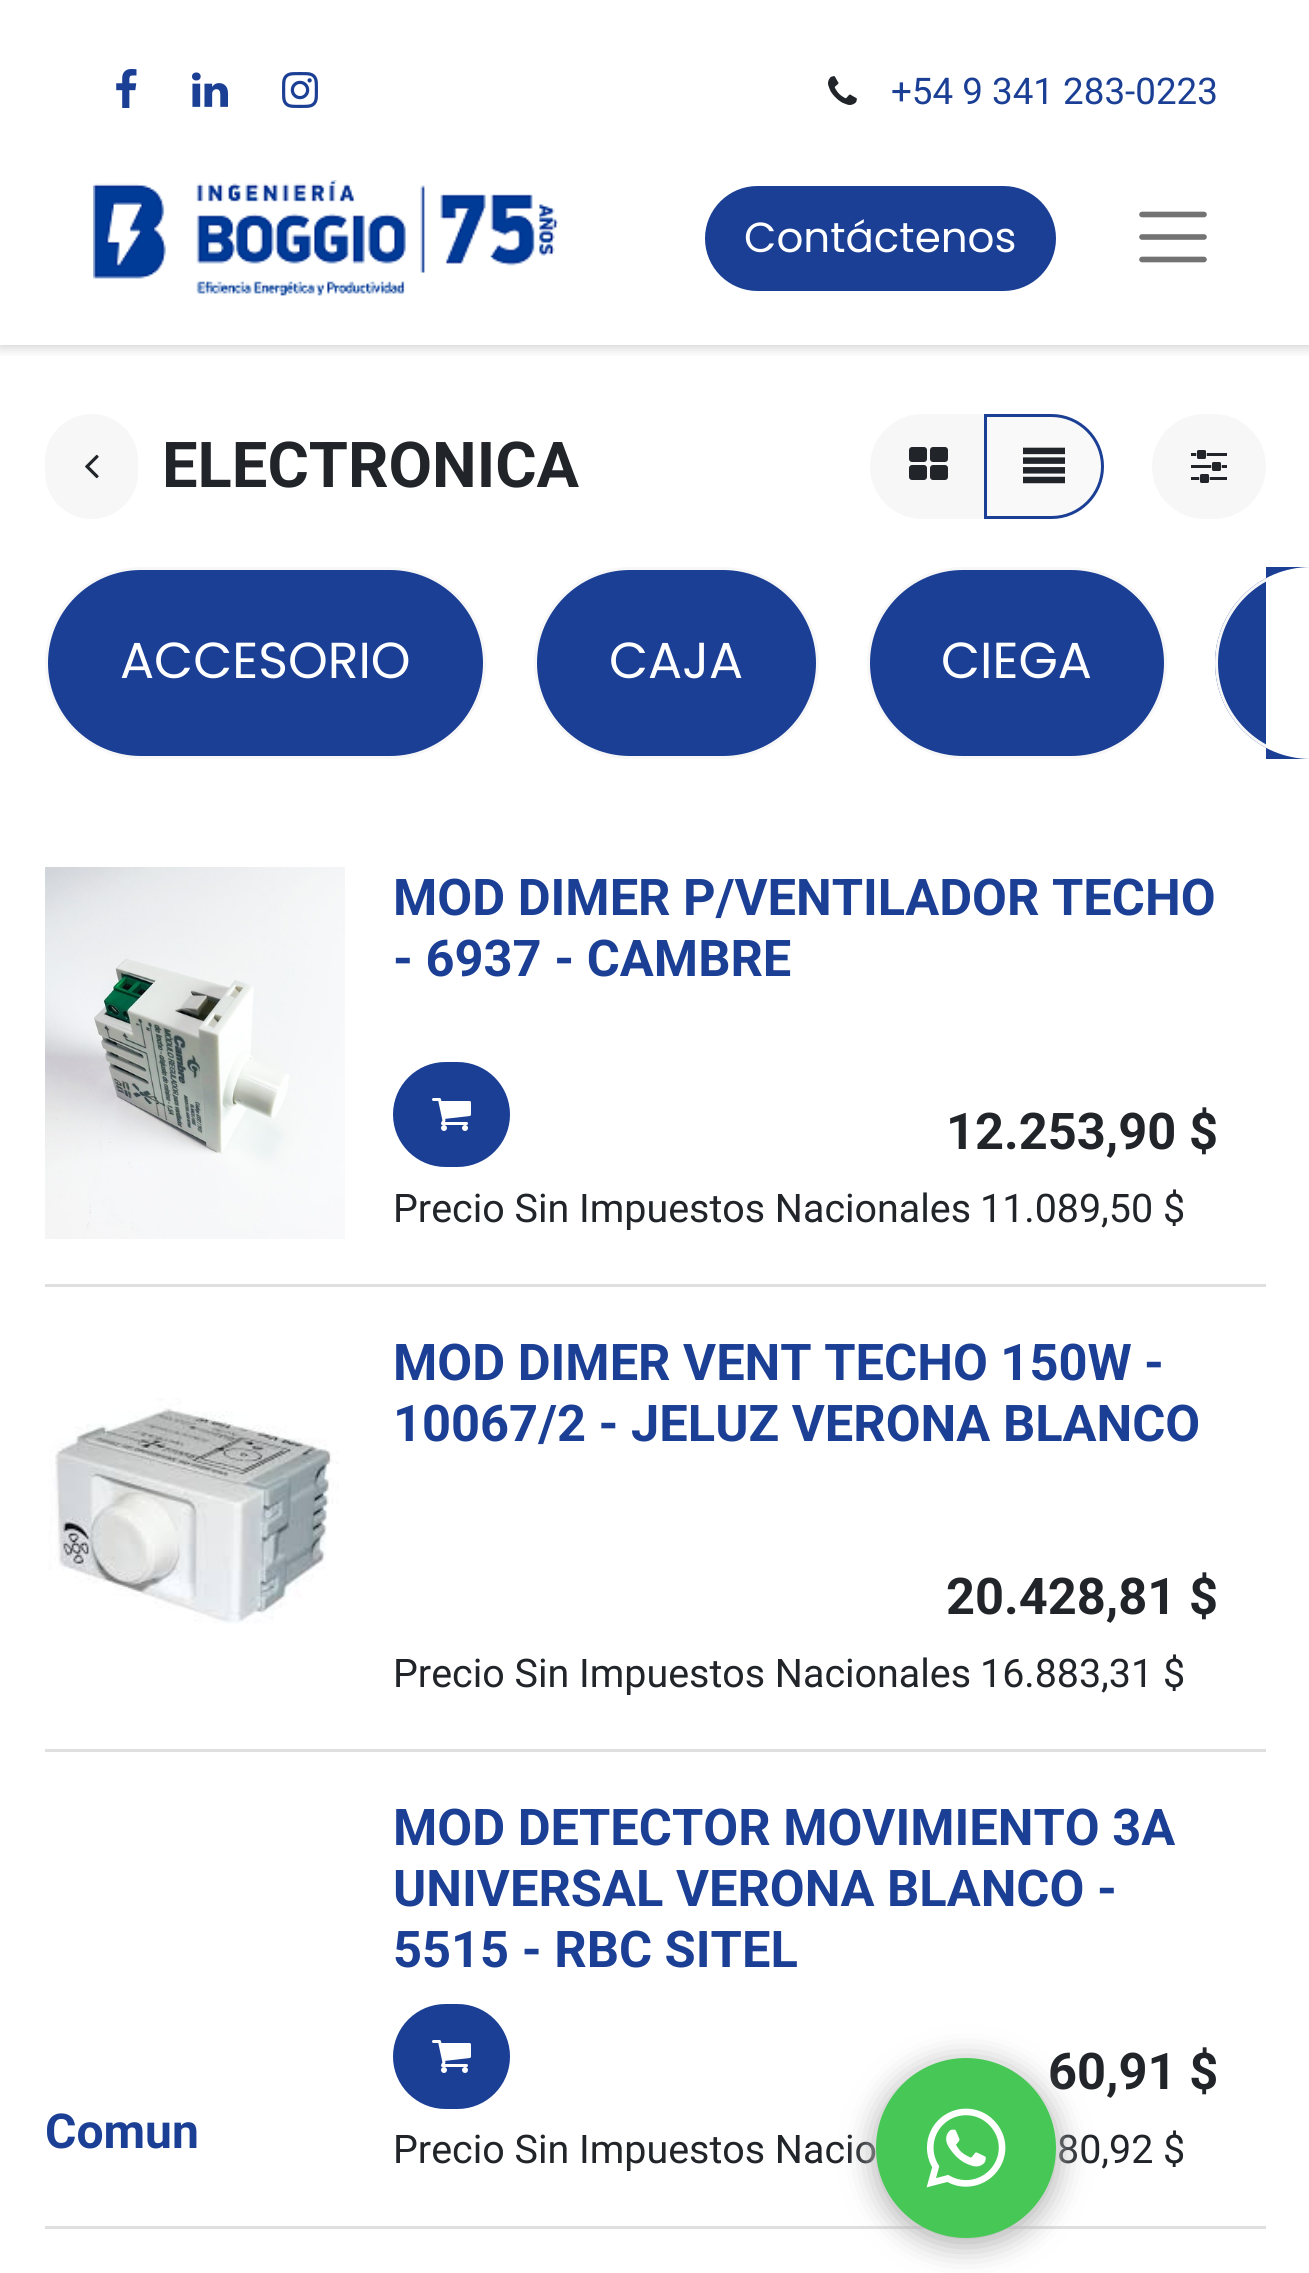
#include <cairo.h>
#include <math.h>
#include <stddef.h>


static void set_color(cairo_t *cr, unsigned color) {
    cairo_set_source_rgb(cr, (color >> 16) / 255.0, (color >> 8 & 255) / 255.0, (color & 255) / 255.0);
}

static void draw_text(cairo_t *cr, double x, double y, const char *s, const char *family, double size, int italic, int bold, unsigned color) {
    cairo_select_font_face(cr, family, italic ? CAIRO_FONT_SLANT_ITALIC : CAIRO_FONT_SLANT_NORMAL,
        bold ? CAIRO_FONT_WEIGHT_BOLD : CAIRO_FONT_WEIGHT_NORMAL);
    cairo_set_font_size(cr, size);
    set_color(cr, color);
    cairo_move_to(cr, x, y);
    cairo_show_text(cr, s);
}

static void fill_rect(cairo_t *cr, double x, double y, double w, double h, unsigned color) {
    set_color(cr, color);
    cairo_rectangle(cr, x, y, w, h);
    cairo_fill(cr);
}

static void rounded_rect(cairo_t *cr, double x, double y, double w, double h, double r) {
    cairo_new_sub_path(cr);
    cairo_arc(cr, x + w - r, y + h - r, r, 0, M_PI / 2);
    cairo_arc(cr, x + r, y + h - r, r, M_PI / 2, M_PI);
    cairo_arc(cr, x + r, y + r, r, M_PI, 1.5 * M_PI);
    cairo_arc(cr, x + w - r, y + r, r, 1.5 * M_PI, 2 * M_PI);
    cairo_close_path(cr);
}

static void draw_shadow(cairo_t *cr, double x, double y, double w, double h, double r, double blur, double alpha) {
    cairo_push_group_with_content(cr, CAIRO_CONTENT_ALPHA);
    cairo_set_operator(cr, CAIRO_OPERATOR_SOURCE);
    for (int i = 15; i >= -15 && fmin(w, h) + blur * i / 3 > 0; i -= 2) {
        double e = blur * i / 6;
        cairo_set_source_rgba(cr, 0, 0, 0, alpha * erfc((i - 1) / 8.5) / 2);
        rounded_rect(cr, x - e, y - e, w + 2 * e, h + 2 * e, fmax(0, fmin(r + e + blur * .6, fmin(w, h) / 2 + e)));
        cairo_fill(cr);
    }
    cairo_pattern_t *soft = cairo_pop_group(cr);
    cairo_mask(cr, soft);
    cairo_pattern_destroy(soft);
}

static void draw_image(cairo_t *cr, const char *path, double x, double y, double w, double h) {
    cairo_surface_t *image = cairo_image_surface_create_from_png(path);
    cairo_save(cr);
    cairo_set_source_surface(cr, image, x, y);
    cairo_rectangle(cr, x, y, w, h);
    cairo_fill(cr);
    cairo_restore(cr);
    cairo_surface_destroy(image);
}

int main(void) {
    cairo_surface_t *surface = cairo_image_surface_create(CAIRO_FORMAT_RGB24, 1309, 2273);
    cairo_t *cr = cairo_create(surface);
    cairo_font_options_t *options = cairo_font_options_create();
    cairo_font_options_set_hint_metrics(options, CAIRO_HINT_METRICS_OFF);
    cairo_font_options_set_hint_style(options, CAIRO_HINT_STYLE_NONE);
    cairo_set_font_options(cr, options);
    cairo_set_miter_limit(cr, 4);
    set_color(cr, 0xFFFFFF);
    cairo_paint(cr);
    cairo_save(cr);
    cairo_rectangle(cr, 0, 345, 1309, 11);
    cairo_clip(cr);
    set_color(cr, 0x000000);
    draw_shadow(cr, 0, 0, 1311, 345, 0, 7.5, 0.25);
    cairo_restore(cr);
    draw_image(cr, "assets/img1.png", 116, 69, 21, 39);
    draw_image(cr, "assets/img2.png", 192, 72, 36, 35);
    draw_image(cr, "assets/img3.png", 282, 72, 36, 36);
    draw_image(cr, "assets/img4.png", 828, 76, 29, 29);
    draw_text(cr, 891, 104, "+54 9 341 283-0223", "Roboto", 36.75, 0, 0, 0x1B3F94);
    draw_image(cr, "assets/img5.png", 93, 180, 465, 116);
    rounded_rect(cr, 706.5, 187.5, 348, 102, 51);
    cairo_fill_preserve(cr);
    cairo_set_line_width(cr, 3);
    cairo_stroke(cr);
    draw_text(cr, 744, 252, "Contáctenos", "Poppins", 42, 0, 0, 0xFFFFFF);
    cairo_new_path(cr);
    cairo_move_to(cr, 1142, 214.5);
    cairo_line_to(cr, 1204, 214.5);
    cairo_move_to(cr, 1142, 237);
    cairo_line_to(cr, 1204, 237);
    cairo_move_to(cr, 1142, 259.5);
    cairo_line_to(cr, 1204, 259.5);
    set_color(cr, 0x737373);
    cairo_set_line_width(cr, 5.6);
    cairo_set_line_cap(cr, CAIRO_LINE_CAP_ROUND);
    cairo_stroke(cr);
    set_color(cr, 0xF7F7F7);
    rounded_rect(cr, 45, 414, 93, 105, 46.5);
    cairo_fill(cr);
    draw_image(cr, "assets/img6.png", 85, 454, 14, 25);
    draw_text(cr, 162, 487, "ELECTRONICA", "Roboto", 63.25, 0, 1, 0x212529);
    set_color(cr, 0xF7F7F7);
    cairo_new_path(cr);
    cairo_move_to(cr, 922.5, 414);
    cairo_line_to(cr, 987, 414);
    cairo_line_to(cr, 987, 519);
    cairo_line_to(cr, 922.5, 519);
    cairo_curve_to(cr, 893.5, 519, 870, 495.5, 870, 466.5);
    cairo_curve_to(cr, 870, 437.5, 893.5, 414, 922.5, 414);
    cairo_close_path(cr);
    cairo_fill(cr);
    draw_image(cr, "assets/img7.png", 909, 447, 39, 33);
    set_color(cr, 0xF9F9F9);
    cairo_new_path(cr);
    cairo_move_to(cr, 985.5, 415.5);
    cairo_line_to(cr, 1051.5, 415.5);
    cairo_curve_to(cr, 1079.5, 415.5, 1102.5, 438.5, 1102.5, 466.5);
    cairo_curve_to(cr, 1102.5, 494.5, 1079.5, 517.5, 1051.5, 517.5);
    cairo_line_to(cr, 985.5, 517.5);
    cairo_close_path(cr);
    cairo_fill_preserve(cr);
    set_color(cr, 0x1B3F94);
    cairo_set_line_width(cr, 3);
    cairo_set_line_cap(cr, CAIRO_LINE_CAP_BUTT);
    cairo_stroke(cr);
    draw_image(cr, "assets/img8.png", 1023, 447, 42, 37);
    set_color(cr, 0xF7F7F7);
    rounded_rect(cr, 1152, 414, 114, 105, 52.5);
    cairo_fill(cr);
    draw_image(cr, "assets/img9.png", 1191, 450, 36, 33);
    set_color(cr, 0x1B3F94);
    rounded_rect(cr, 46.5, 568.5, 438, 189, 94.5);
    cairo_fill_preserve(cr);
    set_color(cr, 0xF7F7F7);
    cairo_stroke(cr);
    draw_text(cr, 120, 678, "ACCESORIO", "Poppins", 50.6, 0, 0, 0xFFFFFF);
    set_color(cr, 0x1B3F94);
    rounded_rect(cr, 535.5, 568.5, 282, 189, 94.5);
    cairo_fill_preserve(cr);
    set_color(cr, 0xF7F7F7);
    cairo_stroke(cr);
    draw_text(cr, 609, 678, "CAJA", "Poppins", 50.6, 0, 0, 0xFFFFFF);
    set_color(cr, 0x1B3F94);
    rounded_rect(cr, 868.5, 568.5, 297, 189, 94.5);
    cairo_fill_preserve(cr);
    set_color(cr, 0xF7F7F7);
    cairo_stroke(cr);
    draw_text(cr, 941, 678, "CIEGA", "Poppins", 50.6, 0, 0, 0xFFFFFF);
    set_color(cr, 0x1B3F94);
    cairo_new_path(cr);
    cairo_move_to(cr, 1311, 567);
    cairo_line_to(cr, 1266, 567);
    cairo_line_to(cr, 1266, 759);
    cairo_line_to(cr, 1311, 759);
    cairo_curve_to(cr, 1258, 759, 1215, 716, 1215, 663);
    cairo_curve_to(cr, 1215, 610, 1258, 567, 1311, 567);
    cairo_close_path(cr);
    cairo_fill(cr);
    cairo_save(cr);
    cairo_rectangle(cr, 45, 567, 1221, 204);
    cairo_clip(cr);
    rounded_rect(cr, 1216.5, 568.5, 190, 189, 94.5);
    set_color(cr, 0xF7F7F7);
    cairo_stroke(cr);
    cairo_restore(cr);
    fill_rect(cr, 45, 1284, 1221, 3, 0xDFDFDF);
    draw_image(cr, "assets/img10.png", 45, 867, 300, 372);
    draw_text(cr, 393, 915, "MOD DIMER P/VENTILADOR TECHO", "Roboto", 50.6, 0, 1, 0x1B3F94);
    draw_text(cr, 393, 976, "- 6937 - CAMBRE", "Roboto", 50.6, 0, 1, 0x1B3F94);
    rounded_rect(cr, 394.5, 1063.5, 114, 102, 51);
    cairo_fill_preserve(cr);
    cairo_stroke(cr);
    draw_image(cr, "assets/img11.png", 432, 1098, 39, 33);
    draw_text(cr, 946, 1149, "12.253,90 $", "Roboto", 50.6, 0, 1, 0x212529);
    draw_text(cr, 393, 1222, "Precio Sin Impuestos Nacionales", "Roboto", 39.4, 0, 0, 0x212529);
    draw_text(cr, 980, 1222, "11.089,50 $", "Roboto", 39.4, 0, 0, 0x212529);
    fill_rect(cr, 45, 1749, 1221, 3, 0xDFDFDF);
    draw_image(cr, "assets/img12.png", 47, 1398, 292, 286);
    draw_text(cr, 393, 1380, "MOD DIMER VENT TECHO 150W", "Roboto", 50.6, 0, 1, 0x1B3F94);
    draw_text(cr, 1144, 1380, "-", "Roboto", 50.6, 0, 1, 0x1B3F94);
    draw_text(cr, 393, 1441, "10067/2 - JELUZ VERONA BLANCO", "Roboto", 50.6, 0, 1, 0x1B3F94);
    draw_text(cr, 946, 1614, "20.428,81 $", "Roboto", 50.6, 0, 1, 0x212529);
    draw_text(cr, 393, 1687, "Precio Sin Impuestos Nacionales", "Roboto", 39.4, 0, 0, 0x212529);
    draw_text(cr, 980, 1687, "16.883,31 $", "Roboto", 39.4, 0, 0, 0x212529);
    fill_rect(cr, 45, 2226, 1221, 3, 0xDFDFDF);
    draw_text(cr, 45, 2148, "Comun", "Roboto", 48, 0, 1, 0x1B3F94);
    draw_text(cr, 393, 1845, "MOD DETECTOR MOVIMIENTO 3A", "Roboto", 50.6, 0, 1, 0x1B3F94);
    draw_text(cr, 393, 1906, "UNIVERSAL VERONA BLANCO", "Roboto", 50.6, 0, 1, 0x1B3F94);
    draw_text(cr, 1097, 1906, "-", "Roboto", 50.6, 0, 1, 0x1B3F94);
    draw_text(cr, 393, 1967, "5515 - RBC SITEL", "Roboto", 50.6, 0, 1, 0x1B3F94);
    rounded_rect(cr, 394.5, 2005.5, 114, 102, 51);
    cairo_fill_preserve(cr);
    cairo_stroke(cr);
    draw_image(cr, "assets/img11.png", 432, 2040, 39, 33);
    draw_text(cr, 1048, 2089, "60,91 $", "Roboto", 50.6, 0, 1, 0x212529);
    draw_text(cr, 393, 2163, "Precio Sin Impuestos Nacio", "Roboto", 39.4, 0, 0, 0x212529);
    draw_text(cr, 1057, 2163, "80,92 $", "Roboto", 39.4, 0, 0, 0x212529);
    set_color(cr, 0xB5B5B5);
    draw_shadow(cr, 873, 2061, 186, 186, 93, 15, 1);
    set_color(cr, 0x47C856);
    cairo_arc(cr, 966, 2148, 90, 0, 2 * M_PI);
    cairo_fill(cr);
    draw_image(cr, "assets/img13.png", 926, 2108, 80, 80);
    cairo_surface_write_to_png(surface, "output.png");
    cairo_font_options_destroy(options);
    cairo_destroy(cr);
    cairo_surface_destroy(surface);
    return 0;
}
